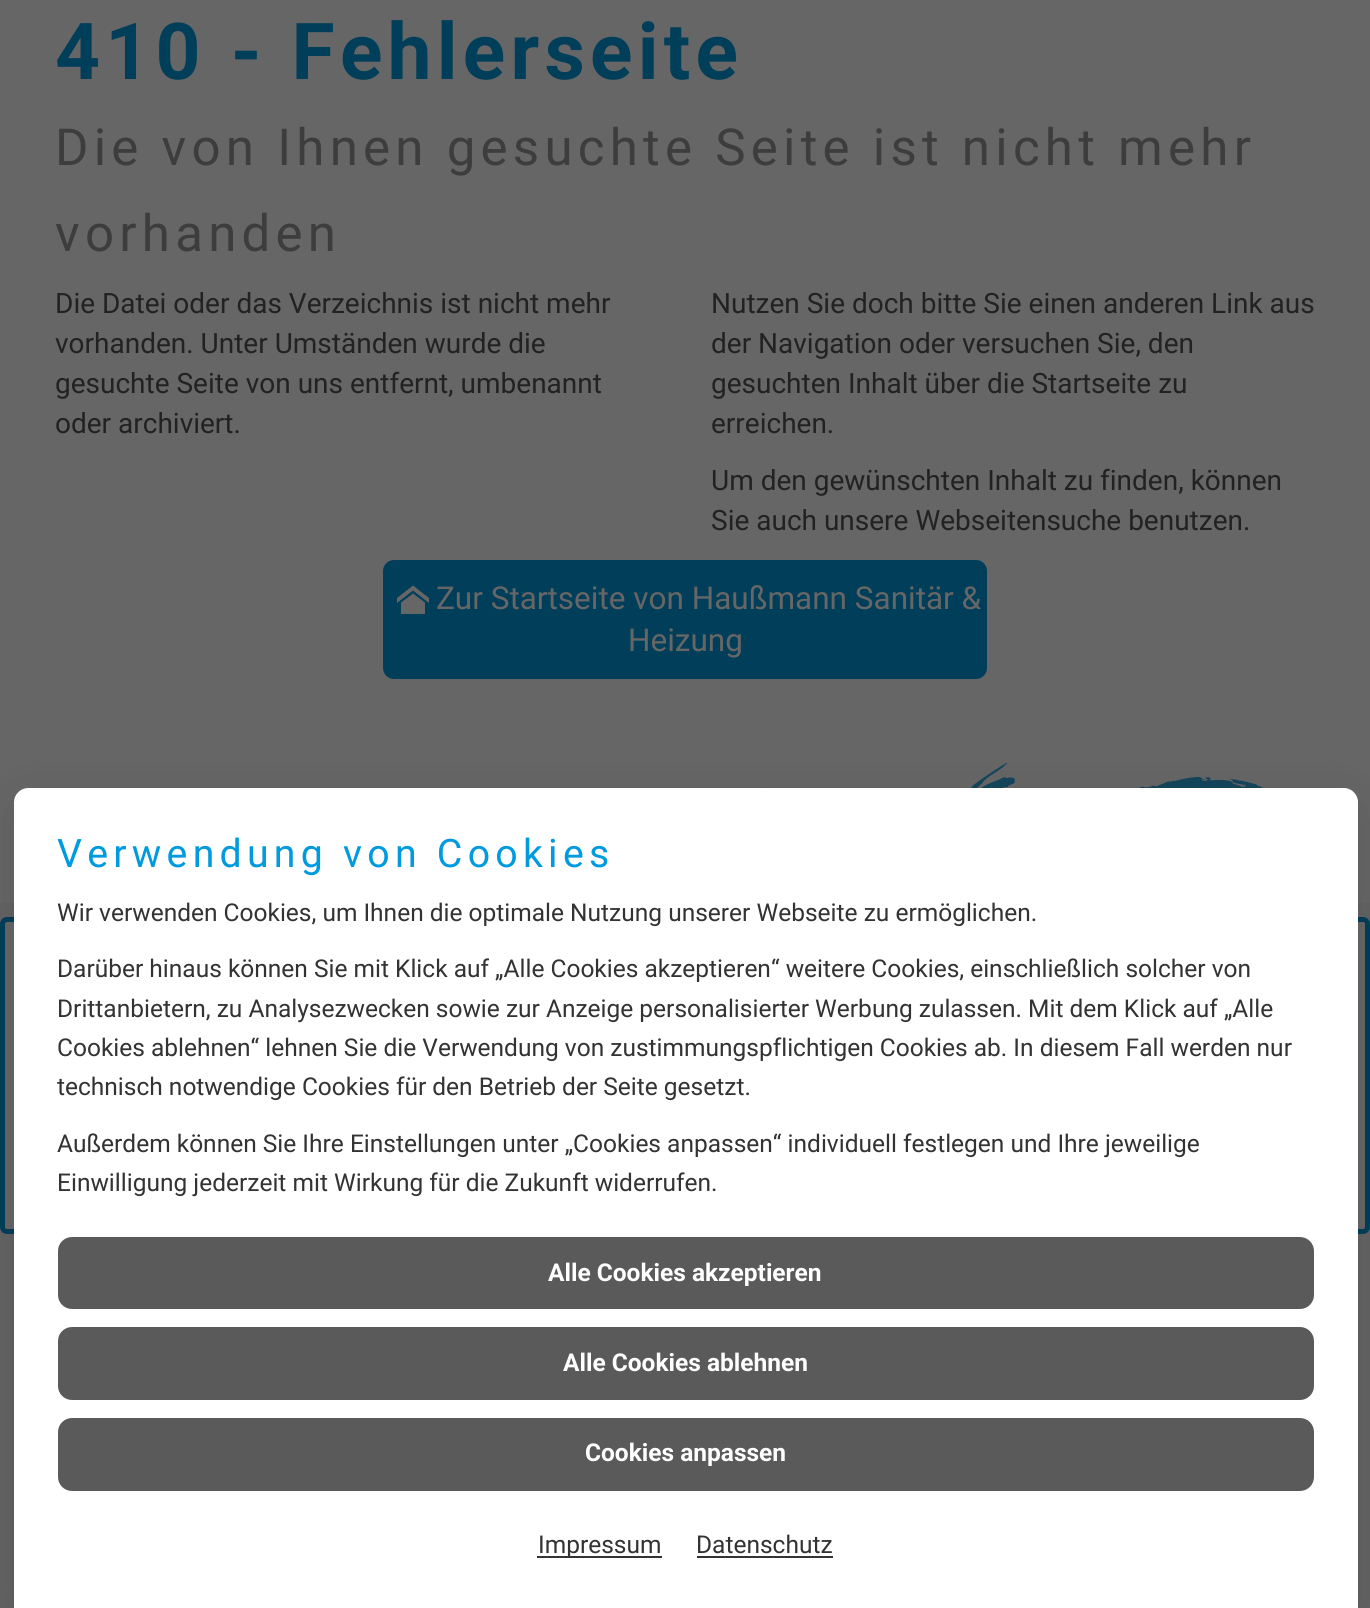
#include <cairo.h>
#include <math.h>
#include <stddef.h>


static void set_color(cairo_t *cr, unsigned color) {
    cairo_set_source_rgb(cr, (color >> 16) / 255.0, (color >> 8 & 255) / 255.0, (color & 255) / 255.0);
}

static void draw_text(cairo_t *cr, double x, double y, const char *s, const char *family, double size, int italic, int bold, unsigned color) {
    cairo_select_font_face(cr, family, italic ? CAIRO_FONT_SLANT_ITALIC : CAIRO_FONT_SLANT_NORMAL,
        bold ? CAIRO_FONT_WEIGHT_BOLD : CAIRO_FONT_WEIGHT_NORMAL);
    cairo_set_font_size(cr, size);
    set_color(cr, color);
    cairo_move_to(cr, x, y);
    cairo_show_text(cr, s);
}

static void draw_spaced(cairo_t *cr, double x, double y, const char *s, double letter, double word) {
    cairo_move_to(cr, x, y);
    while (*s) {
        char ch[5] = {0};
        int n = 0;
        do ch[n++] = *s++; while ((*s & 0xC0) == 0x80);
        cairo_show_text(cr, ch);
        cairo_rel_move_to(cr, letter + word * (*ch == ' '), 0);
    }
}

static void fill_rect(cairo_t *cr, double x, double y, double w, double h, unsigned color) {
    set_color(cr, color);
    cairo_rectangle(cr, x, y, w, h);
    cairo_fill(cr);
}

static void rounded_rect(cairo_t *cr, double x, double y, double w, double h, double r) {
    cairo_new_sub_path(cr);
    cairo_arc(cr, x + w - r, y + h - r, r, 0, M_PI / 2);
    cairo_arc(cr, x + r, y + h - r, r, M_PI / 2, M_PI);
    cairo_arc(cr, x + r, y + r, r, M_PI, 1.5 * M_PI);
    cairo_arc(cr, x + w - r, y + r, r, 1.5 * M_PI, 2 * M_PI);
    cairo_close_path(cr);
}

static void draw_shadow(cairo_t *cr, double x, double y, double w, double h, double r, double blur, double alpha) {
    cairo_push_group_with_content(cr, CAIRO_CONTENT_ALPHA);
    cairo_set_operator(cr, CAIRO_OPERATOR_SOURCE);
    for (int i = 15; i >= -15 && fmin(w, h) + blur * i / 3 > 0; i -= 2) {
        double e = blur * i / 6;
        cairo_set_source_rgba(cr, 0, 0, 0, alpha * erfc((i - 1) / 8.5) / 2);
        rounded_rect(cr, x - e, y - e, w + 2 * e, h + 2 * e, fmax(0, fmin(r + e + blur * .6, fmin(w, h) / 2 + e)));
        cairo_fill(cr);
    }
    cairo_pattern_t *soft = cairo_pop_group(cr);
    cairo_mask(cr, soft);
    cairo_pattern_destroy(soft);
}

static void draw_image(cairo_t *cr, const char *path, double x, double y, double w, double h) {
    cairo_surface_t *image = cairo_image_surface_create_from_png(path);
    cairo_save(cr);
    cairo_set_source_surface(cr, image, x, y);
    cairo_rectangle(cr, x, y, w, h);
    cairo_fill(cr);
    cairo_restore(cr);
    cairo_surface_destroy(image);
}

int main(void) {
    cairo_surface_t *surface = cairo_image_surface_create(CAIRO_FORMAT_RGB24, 1370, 1608);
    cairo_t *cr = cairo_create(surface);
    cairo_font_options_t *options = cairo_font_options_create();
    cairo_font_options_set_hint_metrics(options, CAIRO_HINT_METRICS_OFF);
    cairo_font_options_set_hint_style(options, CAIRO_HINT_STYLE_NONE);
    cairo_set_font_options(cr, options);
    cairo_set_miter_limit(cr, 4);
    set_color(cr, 0x666666);
    cairo_paint(cr);
    cairo_select_font_face(cr, "Roboto", CAIRO_FONT_SLANT_NORMAL, CAIRO_FONT_WEIGHT_BOLD);
    cairo_set_font_size(cr, 78.5);
    set_color(cr, 0x003E59);
    draw_spaced(cr, 55, 79, "410 - Fehlerseite", 5.25, 0);
    cairo_select_font_face(cr, "Roboto", CAIRO_FONT_SLANT_NORMAL, CAIRO_FONT_WEIGHT_NORMAL);
    cairo_set_font_size(cr, 51);
    set_color(cr, 0x3D3D3D);
    draw_spaced(cr, 55, 165, "Die von Ihnen gesuchte Seite ist nicht mehr", 5.25, 0);
    draw_spaced(cr, 55, 251, "vorhanden", 5.25, 0);
    draw_text(cr, 55, 313, "Die Datei oder das Verzeichnis ist nicht mehr", "Roboto", 28, 0, 0, 0x222222);
    draw_text(cr, 55, 353, "vorhanden. Unter Umständen wurde die", "Roboto", 28, 0, 0, 0x222222);
    draw_text(cr, 55, 393, "gesuchte Seite von uns entfernt, umbenannt", "Roboto", 28, 0, 0, 0x222222);
    draw_text(cr, 55, 433, "oder archiviert.", "Roboto", 28, 0, 0, 0x222222);
    draw_text(cr, 711, 313, "Nutzen Sie doch bitte Sie einen anderen Link aus", "Roboto", 28, 0, 0, 0x222222);
    draw_text(cr, 711, 353, "der Navigation oder versuchen Sie, den", "Roboto", 28, 0, 0, 0x222222);
    draw_text(cr, 711, 393, "gesuchten Inhalt über die Startseite zu", "Roboto", 28, 0, 0, 0x222222);
    draw_text(cr, 711, 433, "erreichen.", "Roboto", 28, 0, 0, 0x222222);
    draw_text(cr, 711, 490, "Um den gewünschten Inhalt zu finden, können", "Roboto", 28, 0, 0, 0x222222);
    draw_text(cr, 711, 530, "Sie auch unsere Webseitensuche benutzen.", "Roboto", 28, 0, 0, 0x222222);
    set_color(cr, 0x003E59);
    rounded_rect(cr, 383, 560, 604, 119, 11);
    cairo_fill(cr);
    set_color(cr, 0x666666);
    cairo_new_path(cr);
    cairo_move_to(cr, 429, 603);
    cairo_line_to(cr, 413, 590.5);
    cairo_line_to(cr, 397, 603);
    cairo_line_to(cr, 397, 598);
    cairo_line_to(cr, 413, 585.5);
    cairo_line_to(cr, 429, 598);
    cairo_close_path(cr);
    cairo_move_to(cr, 425, 602.5);
    cairo_line_to(cr, 425, 614);
    cairo_line_to(cr, 401, 614);
    cairo_line_to(cr, 401, 602.5);
    cairo_line_to(cr, 413, 593.5);
    cairo_close_path(cr);
    cairo_fill(cr);
    draw_text(cr, 436, 609, "Zur Startseite von Haußmann Sanitär &", "Roboto", 31.5, 0, 0, 0x666666);
    draw_text(cr, 628, 651, "Heizung", "Roboto", 31.5, 0, 0, 0x666666);
    fill_rect(cr, 0, 903, 1370, 705, 0x626262);
    draw_image(cr, "assets/img1.png", 765, 763, 498, 25);
    set_color(cr, 0x666666);
    rounded_rect(cr, 2.5, 919.5, 1365, 312, 4.5);
    cairo_fill_preserve(cr);
    set_color(cr, 0x003E59);
    cairo_set_line_width(cr, 5);
    cairo_stroke(cr);
    set_color(cr, 0x000000);
    draw_shadow(cr, 14, 798, 1344, 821, 14, 24.5, 0.1);
    set_color(cr, 0xFFFFFF);
    cairo_new_path(cr);
    cairo_move_to(cr, 28, 788);
    cairo_line_to(cr, 1344, 788);
    cairo_curve_to(cr, 1351.5, 788, 1358, 794.5, 1358, 802);
    cairo_line_to(cr, 1358, 1608);
    cairo_line_to(cr, 14, 1608);
    cairo_line_to(cr, 14, 802);
    cairo_curve_to(cr, 14, 794.5, 20.5, 788, 28, 788);
    cairo_close_path(cr);
    cairo_fill(cr);
    cairo_set_font_size(cr, 39.25);
    set_color(cr, 0x009ADF);
    draw_spaced(cr, 57, 867, "Verwendung von Cookies", 5.25, 0);
    draw_text(cr, 57, 921, "Wir verwenden Cookies, um Ihnen die optimale Nutzung unserer Webseite zu ermöglichen.", "Roboto", 24.5, 0, 0, 0x333333);
    draw_text(cr, 57, 977, "Darüber hinaus können Sie mit Klick auf „Alle Cookies akzeptieren“ weitere Cookies, einschließlich solcher von", "Roboto", 24.5, 0, 0, 0x333333);
    draw_text(cr, 57, 1017, "Drittanbietern, zu Analysezwecken sowie zur Anzeige personalisierter Werbung zulassen. Mit dem Klick auf „Alle", "Roboto", 24.5, 0, 0, 0x333333);
    draw_text(cr, 57, 1056, "Cookies ablehnen“ lehnen Sie die Verwendung von zustimmungspflichtigen Cookies ab. In diesem Fall werden nur", "Roboto", 24.5, 0, 0, 0x333333);
    draw_text(cr, 57, 1095, "technisch notwendige Cookies für den Betrieb der Seite gesetzt.", "Roboto", 24.5, 0, 0, 0x333333);
    draw_text(cr, 57, 1152, "Außerdem können Sie Ihre Einstellungen unter „Cookies anpassen“ individuell festlegen und Ihre jeweilige", "Roboto", 24.5, 0, 0, 0x333333);
    draw_text(cr, 57, 1191, "Einwilligung jederzeit mit Wirkung für die Zukunft widerrufen.", "Roboto", 24.5, 0, 0, 0x333333);
    set_color(cr, 0x5A5A5A);
    rounded_rect(cr, 59, 1238, 1254, 70, 13);
    cairo_fill_preserve(cr);
    cairo_set_line_width(cr, 2);
    cairo_stroke(cr);
    draw_text(cr, 548, 1281, "Alle Cookies akzeptieren", "Roboto", 24.5, 0, 1, 0xFFFFFF);
    set_color(cr, 0x5A5A5A);
    rounded_rect(cr, 59, 1328, 1254, 71, 13);
    cairo_fill_preserve(cr);
    cairo_stroke(cr);
    draw_text(cr, 563, 1371, "Alle Cookies ablehnen", "Roboto", 24.5, 0, 1, 0xFFFFFF);
    set_color(cr, 0x5A5A5A);
    rounded_rect(cr, 59, 1419, 1254, 71, 13);
    cairo_fill_preserve(cr);
    cairo_stroke(cr);
    draw_text(cr, 585, 1461, "Cookies anpassen", "Roboto", 24.5, 0, 1, 0xFFFFFF);
    fill_rect(cr, 537, 1556, 125, 2, 0x333333);
    draw_text(cr, 538, 1553, "Impressum", "Roboto", 24.5, 0, 0, 0x333333);
    draw_text(cr, 696, 1553, "Datenschutz", "Roboto", 24.5, 0, 0, 0x333333);
    fill_rect(cr, 697, 1556, 136, 2, 0x333333);
    cairo_surface_write_to_png(surface, "output.png");
    cairo_font_options_destroy(options);
    cairo_destroy(cr);
    cairo_surface_destroy(surface);
    return 0;
}
